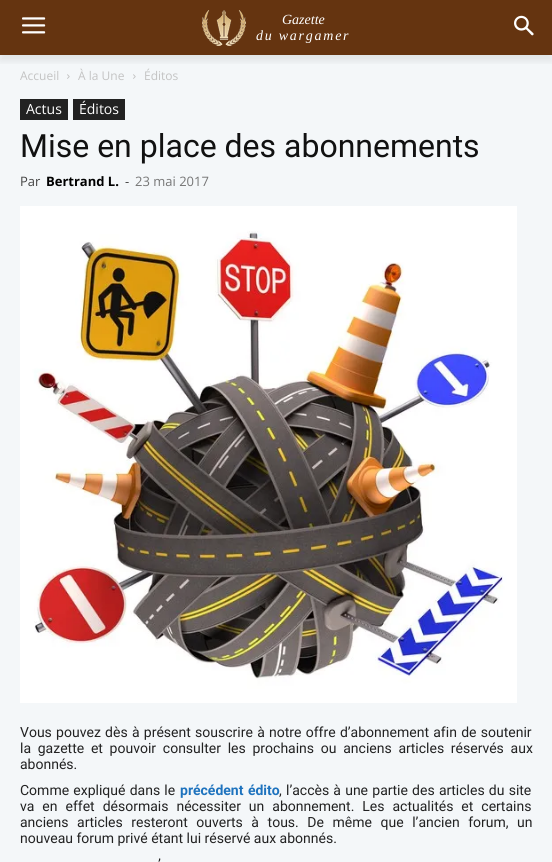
#include <cairo.h>
#include <math.h>
#include <stddef.h>


static void set_color(cairo_t *cr, unsigned color) {
    cairo_set_source_rgb(cr, (color >> 16) / 255.0, (color >> 8 & 255) / 255.0, (color & 255) / 255.0);
}

static void draw_text(cairo_t *cr, double x, double y, const char *s, const char *family, double size, int italic, int bold, unsigned color) {
    cairo_select_font_face(cr, family, italic ? CAIRO_FONT_SLANT_ITALIC : CAIRO_FONT_SLANT_NORMAL,
        bold ? CAIRO_FONT_WEIGHT_BOLD : CAIRO_FONT_WEIGHT_NORMAL);
    cairo_set_font_size(cr, size);
    set_color(cr, color);
    cairo_move_to(cr, x, y);
    cairo_show_text(cr, s);
}

static void draw_spaced(cairo_t *cr, double x, double y, const char *s, double letter, double word) {
    cairo_move_to(cr, x, y);
    while (*s) {
        char ch[5] = {0};
        int n = 0;
        do ch[n++] = *s++; while ((*s & 0xC0) == 0x80);
        cairo_show_text(cr, ch);
        cairo_rel_move_to(cr, letter + word * (*ch == ' '), 0);
    }
}

static void fill_rect(cairo_t *cr, double x, double y, double w, double h, unsigned color) {
    set_color(cr, color);
    cairo_rectangle(cr, x, y, w, h);
    cairo_fill(cr);
}

static void rounded_rect(cairo_t *cr, double x, double y, double w, double h, double r) {
    cairo_new_sub_path(cr);
    cairo_arc(cr, x + w - r, y + h - r, r, 0, M_PI / 2);
    cairo_arc(cr, x + r, y + h - r, r, M_PI / 2, M_PI);
    cairo_arc(cr, x + r, y + r, r, M_PI, 1.5 * M_PI);
    cairo_arc(cr, x + w - r, y + r, r, 1.5 * M_PI, 2 * M_PI);
    cairo_close_path(cr);
}

static void draw_shadow(cairo_t *cr, double x, double y, double w, double h, double r, double blur, double alpha) {
    cairo_push_group_with_content(cr, CAIRO_CONTENT_ALPHA);
    cairo_set_operator(cr, CAIRO_OPERATOR_SOURCE);
    for (int i = 15; i >= -15 && fmin(w, h) + blur * i / 3 > 0; i -= 2) {
        double e = blur * i / 6;
        cairo_set_source_rgba(cr, 0, 0, 0, alpha * erfc((i - 1) / 8.5) / 2);
        rounded_rect(cr, x - e, y - e, w + 2 * e, h + 2 * e, fmax(0, fmin(r + e + blur * .6, fmin(w, h) / 2 + e)));
        cairo_fill(cr);
    }
    cairo_pattern_t *soft = cairo_pop_group(cr);
    cairo_mask(cr, soft);
    cairo_pattern_destroy(soft);
}

static void draw_image(cairo_t *cr, const char *path, double x, double y, double w, double h) {
    cairo_surface_t *image = cairo_image_surface_create_from_png(path);
    cairo_save(cr);
    cairo_set_source_surface(cr, image, x, y);
    cairo_rectangle(cr, x, y, w, h);
    cairo_fill(cr);
    cairo_restore(cr);
    cairo_surface_destroy(image);
}

int main(void) {
    cairo_surface_t *surface = cairo_image_surface_create(CAIRO_FORMAT_RGB24, 552, 862);
    cairo_t *cr = cairo_create(surface);
    cairo_font_options_t *options = cairo_font_options_create();
    cairo_font_options_set_hint_metrics(options, CAIRO_HINT_METRICS_OFF);
    cairo_font_options_set_hint_style(options, CAIRO_HINT_STYLE_NONE);
    cairo_set_font_options(cr, options);
    cairo_set_miter_limit(cr, 4);
    set_color(cr, 0xF4F7F9);
    cairo_paint(cr);
    fill_rect(cr, 0, 0, 552, 55, 0x653410);
    draw_image(cr, "assets/img1.png", 22, 17, 24, 17);
    draw_image(cr, "assets/img2.png", 202, 10, 44, 36);
    draw_image(cr, "assets/img3.png", 514, 15, 20, 21);
    cairo_save(cr);
    cairo_rectangle(cr, 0, 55, 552, 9);
    cairo_clip(cr);
    set_color(cr, 0x000000);
    draw_shadow(cr, 0, 6, 552, 55, 0, 4, 0.08);
    cairo_restore(cr);
    draw_text(cr, 282, 24, "Gazette", "Liberation Serif", 14, 1, 0, 0xFFFFFF);
    draw_spaced(cr, 256, 40, "du wargamer", 1.75, 0);
    draw_text(cr, 20, 80, "Accueil", "Open Sans", 12, 0, 0, 0xC3C3C3);
    draw_image(cr, "assets/img4.png", 67, 74, 3, 5);
    draw_text(cr, 78, 80, "À la Une", "Open Sans", 12, 0, 0, 0xC3C3C3);
    draw_image(cr, "assets/img4.png", 133, 74, 3, 5);
    draw_text(cr, 144, 80, "Éditos", "Open Sans", 12, 0, 0, 0xC3C3C3);
    fill_rect(cr, 20, 99, 48, 21, 0x222222);
    draw_text(cr, 26, 114, "Actus", "Open Sans", 14, 0, 0, 0xFFFFFF);
    fill_rect(cr, 73, 99, 52, 21, 0x222222);
    draw_text(cr, 79, 114, "Éditos", "Open Sans", 14, 0, 0, 0xFFFFFF);
    draw_text(cr, 20, 157, "Mise en place des abonnements", "Roboto", 32, 0, 0, 0x111111);
    draw_text(cr, 20, 186, "Par", "Open Sans", 13, 0, 0, 0x444444);
    draw_text(cr, 46, 186, "Bertrand L.", "Open Sans", 13, 0, 1, 0x000000);
    draw_text(cr, 125, 186, "-", "Open Sans", 13, 0, 0, 0x444444);
    draw_text(cr, 135, 186, "23 mai 2017", "Open Sans", 13, 0, 0, 0x767676);
    draw_image(cr, "assets/img5.png", 20, 206, 497, 497);
    cairo_select_font_face(cr, "Roboto", CAIRO_FONT_SLANT_NORMAL, CAIRO_FONT_WEIGHT_NORMAL);
    cairo_set_font_size(cr, 14);
    set_color(cr, 0x222222);
    draw_spaced(cr, 20, 737, "Vous pouvez dès à présent souscrire à notre offre d’abonnement afin de soutenir", 0, 0.8);
    draw_spaced(cr, 20, 753, "la gazette et pouvoir consulter les prochains ou anciens articles réservés aux", 0, 3.25);
    draw_text(cr, 20, 769, "abonnés.", "Roboto", 14, 0, 0, 0x222222);
    draw_spaced(cr, 20, 795, "Comme expliqué dans le", 0, 0.75);
    cairo_select_font_face(cr, "Roboto", CAIRO_FONT_SLANT_NORMAL, CAIRO_FONT_WEIGHT_BOLD);
    set_color(cr, 0x1E73BE);
    draw_spaced(cr, 180, 795, "précédent édito", 0, 1);
    cairo_select_font_face(cr, "Roboto", CAIRO_FONT_SLANT_NORMAL, CAIRO_FONT_WEIGHT_NORMAL);
    set_color(cr, 0x222222);
    draw_spaced(cr, 279, 795, ", l’accès à une partie des articles du site", 0, 0.75);
    draw_spaced(cr, 20, 811, "va en effet désormais nécessiter un abonnement. Les actualités et certains", 0, 4.5);
    draw_spaced(cr, 20, 827, "anciens articles resteront ouverts à tous. De même que l’ancien forum, un", 0, 5.1);
    draw_text(cr, 20, 843, "nouveau forum privé étant lui réservé aux abonnés.", "Roboto", 14, 0, 0, 0x222222);
    draw_text(cr, 158, 869, "’", "Roboto", 14, 0, 0, 0x222222);
    cairo_surface_write_to_png(surface, "output.png");
    cairo_font_options_destroy(options);
    cairo_destroy(cr);
    cairo_surface_destroy(surface);
    return 0;
}
